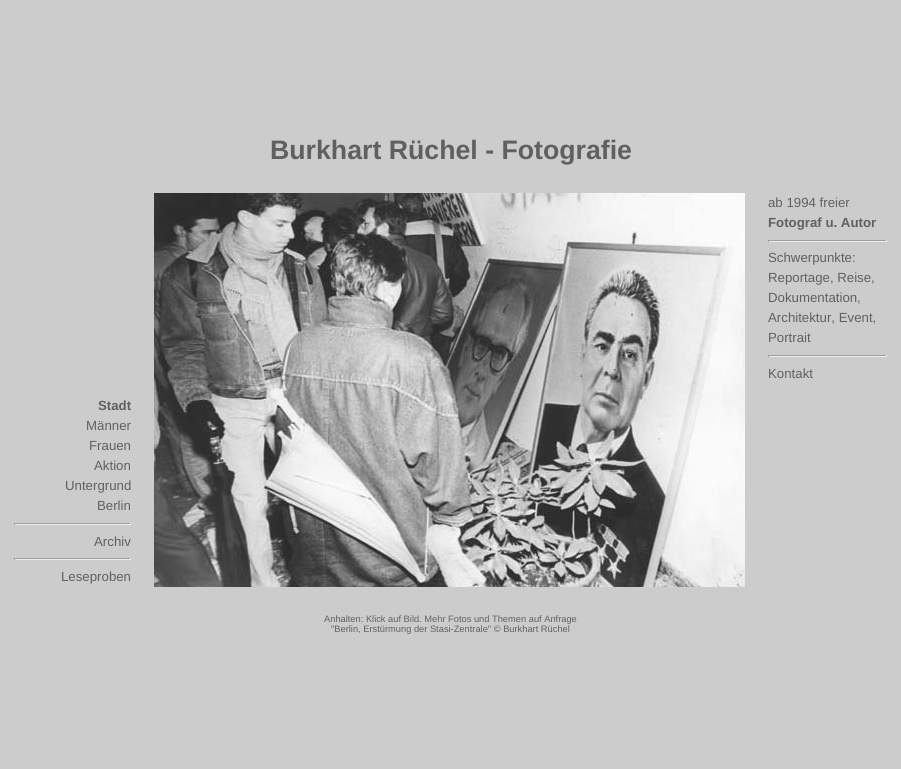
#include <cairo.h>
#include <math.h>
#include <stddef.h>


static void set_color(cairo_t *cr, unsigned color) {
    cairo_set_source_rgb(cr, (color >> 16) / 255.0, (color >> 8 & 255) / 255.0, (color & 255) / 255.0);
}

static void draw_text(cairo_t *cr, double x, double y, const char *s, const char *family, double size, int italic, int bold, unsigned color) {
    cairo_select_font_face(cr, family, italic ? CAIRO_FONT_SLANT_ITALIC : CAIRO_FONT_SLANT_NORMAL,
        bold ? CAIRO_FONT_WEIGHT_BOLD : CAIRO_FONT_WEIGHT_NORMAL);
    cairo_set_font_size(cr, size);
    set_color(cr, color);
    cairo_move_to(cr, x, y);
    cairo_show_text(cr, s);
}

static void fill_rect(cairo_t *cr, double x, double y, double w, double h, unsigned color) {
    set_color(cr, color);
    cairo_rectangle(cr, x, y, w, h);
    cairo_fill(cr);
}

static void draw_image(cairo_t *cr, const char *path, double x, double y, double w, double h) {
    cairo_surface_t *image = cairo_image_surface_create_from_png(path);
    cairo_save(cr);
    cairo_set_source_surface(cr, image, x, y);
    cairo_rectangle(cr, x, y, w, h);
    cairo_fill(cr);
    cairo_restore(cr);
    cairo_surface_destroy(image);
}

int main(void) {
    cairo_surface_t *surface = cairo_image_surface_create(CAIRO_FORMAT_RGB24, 901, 769);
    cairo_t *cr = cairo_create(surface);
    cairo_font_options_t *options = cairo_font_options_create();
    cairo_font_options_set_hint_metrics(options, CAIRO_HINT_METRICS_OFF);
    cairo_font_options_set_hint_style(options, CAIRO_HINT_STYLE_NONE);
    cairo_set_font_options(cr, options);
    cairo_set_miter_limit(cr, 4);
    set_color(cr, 0xCCCCCC);
    cairo_paint(cr);
    draw_text(cr, 270, 159, "Burkhart Rüchel - Fotografie", "Liberation Sans", 26.7, 0, 1, 0x606060);
    draw_image(cr, "assets/img1.png", 154, 193, 591, 394);
    draw_text(cr, 768, 207, "ab 1994 freier", "Liberation Sans", 13.25, 0, 0, 0x606060);
    draw_text(cr, 768, 227, "Fotograf u. Autor", "Liberation Sans", 13.25, 0, 1, 0x606060);
    fill_rect(cr, 768, 240, 119, 1, 0x9F9F9F);
    fill_rect(cr, 886, 240, 1, 2, 0xEEEEEE);
    fill_rect(cr, 768, 241, 119, 1, 0xEEEEEE);
    fill_rect(cr, 768, 240, 1, 2, 0x9F9F9F);
    draw_text(cr, 768, 262, "Schwerpunkte:", "Liberation Sans", 13.25, 0, 0, 0x606060);
    draw_text(cr, 768, 282, "Reportage, Reise,", "Liberation Sans", 13.25, 0, 0, 0x606060);
    draw_text(cr, 768, 302, "Dokumentation,", "Liberation Sans", 13.25, 0, 0, 0x606060);
    draw_text(cr, 768, 322, "Architektur, Event,", "Liberation Sans", 13.25, 0, 0, 0x606060);
    draw_text(cr, 768, 342, "Portrait", "Liberation Sans", 13.25, 0, 0, 0x606060);
    fill_rect(cr, 768, 355, 119, 1, 0x9F9F9F);
    fill_rect(cr, 886, 355, 1, 2, 0xEEEEEE);
    fill_rect(cr, 768, 356, 119, 1, 0xEEEEEE);
    fill_rect(cr, 768, 355, 1, 2, 0x9F9F9F);
    draw_text(cr, 768, 378, "Kontakt", "Liberation Sans", 13.25, 0, 0, 0x606060);
    draw_text(cr, 98, 410, "Stadt", "Liberation Sans", 13.25, 0, 1, 0x606060);
    draw_text(cr, 86, 430, "Männer", "Liberation Sans", 13.25, 0, 0, 0x606060);
    draw_text(cr, 89, 450, "Frauen", "Liberation Sans", 13.25, 0, 0, 0x606060);
    draw_text(cr, 94, 470, "Aktion", "Liberation Sans", 13.25, 0, 0, 0x606060);
    draw_text(cr, 65, 490, "Untergrund", "Liberation Sans", 13.25, 0, 0, 0x606060);
    draw_text(cr, 97, 510, "Berlin", "Liberation Sans", 13.25, 0, 0, 0x606060);
    fill_rect(cr, 14, 523, 117, 1, 0x9F9F9F);
    fill_rect(cr, 130, 523, 1, 2, 0xEEEEEE);
    fill_rect(cr, 14, 524, 117, 1, 0xEEEEEE);
    fill_rect(cr, 14, 523, 1, 2, 0x9F9F9F);
    draw_text(cr, 94, 546, "Archiv", "Liberation Sans", 13.25, 0, 0, 0x606060);
    fill_rect(cr, 14, 558, 117, 1, 0x9F9F9F);
    fill_rect(cr, 130, 558, 1, 2, 0xEEEEEE);
    fill_rect(cr, 14, 559, 117, 1, 0xEEEEEE);
    fill_rect(cr, 14, 558, 1, 2, 0x9F9F9F);
    draw_text(cr, 61, 581, "Leseproben", "Liberation Sans", 13.25, 0, 0, 0x606060);
    draw_text(cr, 324, 622, "Anhalten: Klick auf Bild. Mehr Fotos und Themen auf Anfrage", "Liberation Sans", 9.3, 0, 0, 0x606060);
    draw_text(cr, 331, 632, "\"Berlin, Erstürmung der Stasi-Zentrale\" © Burkhart Rüchel", "Liberation Sans", 9.3, 0, 0, 0x606060);
    cairo_surface_write_to_png(surface, "output.png");
    cairo_font_options_destroy(options);
    cairo_destroy(cr);
    cairo_surface_destroy(surface);
    return 0;
}
